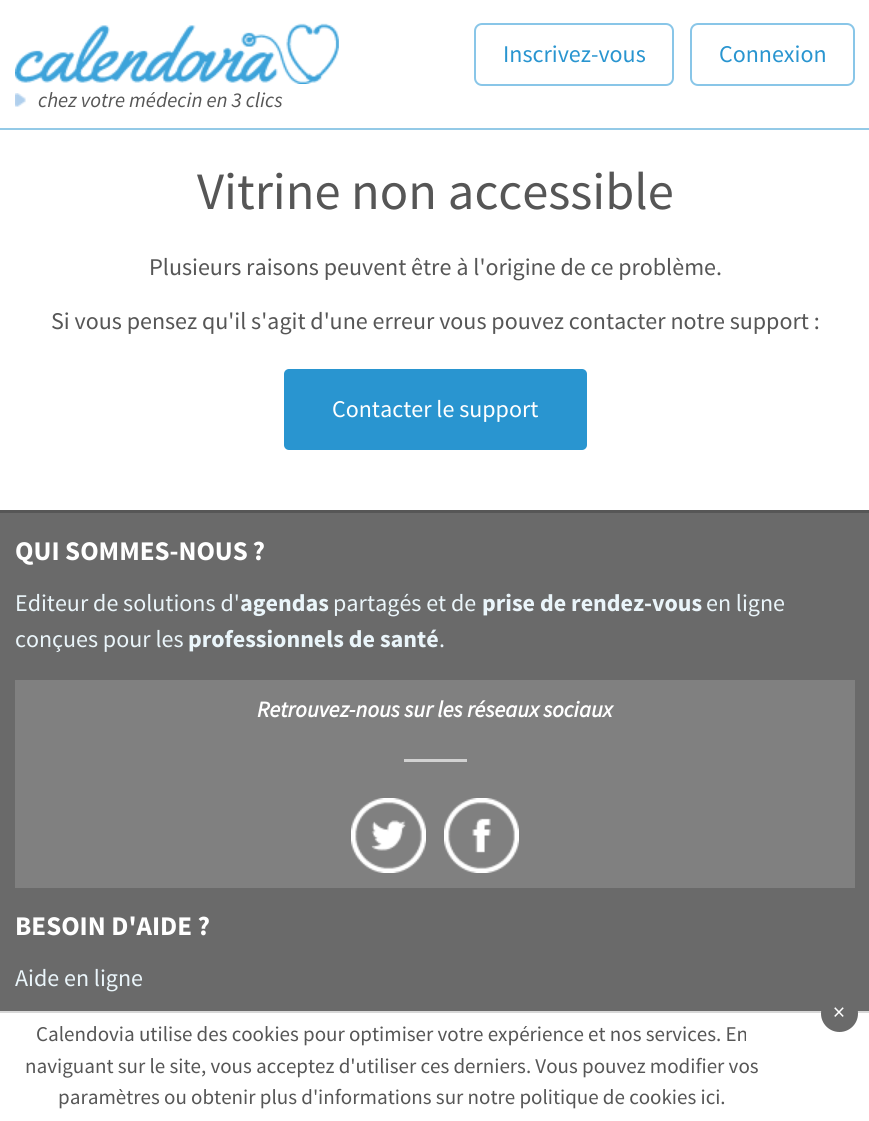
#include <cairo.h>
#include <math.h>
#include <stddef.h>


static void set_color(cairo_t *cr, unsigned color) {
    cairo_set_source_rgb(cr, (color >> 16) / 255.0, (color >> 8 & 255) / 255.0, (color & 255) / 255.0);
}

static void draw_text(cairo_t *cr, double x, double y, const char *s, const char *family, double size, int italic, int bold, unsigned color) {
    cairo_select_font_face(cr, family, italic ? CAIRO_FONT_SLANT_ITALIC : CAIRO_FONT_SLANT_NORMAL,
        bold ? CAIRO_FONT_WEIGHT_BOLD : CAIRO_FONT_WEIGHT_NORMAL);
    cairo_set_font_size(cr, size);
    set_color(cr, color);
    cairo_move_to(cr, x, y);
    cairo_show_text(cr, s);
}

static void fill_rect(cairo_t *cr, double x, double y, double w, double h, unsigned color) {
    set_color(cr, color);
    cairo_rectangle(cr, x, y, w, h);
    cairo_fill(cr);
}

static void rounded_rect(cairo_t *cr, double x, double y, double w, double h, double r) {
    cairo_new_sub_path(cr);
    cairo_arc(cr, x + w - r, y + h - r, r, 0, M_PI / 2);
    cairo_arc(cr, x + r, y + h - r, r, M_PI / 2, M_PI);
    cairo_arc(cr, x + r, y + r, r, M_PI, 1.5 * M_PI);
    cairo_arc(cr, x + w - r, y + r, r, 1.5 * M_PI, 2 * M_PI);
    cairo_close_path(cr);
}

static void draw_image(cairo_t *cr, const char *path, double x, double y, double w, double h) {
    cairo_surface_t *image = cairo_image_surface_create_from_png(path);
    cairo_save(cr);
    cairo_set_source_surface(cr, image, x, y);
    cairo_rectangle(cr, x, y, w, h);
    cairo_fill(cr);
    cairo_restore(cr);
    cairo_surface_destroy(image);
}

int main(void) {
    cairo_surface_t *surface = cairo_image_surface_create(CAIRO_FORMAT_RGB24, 869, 1121);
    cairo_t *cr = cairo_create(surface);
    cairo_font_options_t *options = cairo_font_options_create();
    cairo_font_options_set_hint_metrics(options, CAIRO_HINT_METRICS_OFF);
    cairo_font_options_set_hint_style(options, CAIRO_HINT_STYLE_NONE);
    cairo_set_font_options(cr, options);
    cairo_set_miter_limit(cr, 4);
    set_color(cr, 0xFFFFFF);
    cairo_paint(cr);
    fill_rect(cr, 0, 128, 869, 2, 0x94CAE7);
    rounded_rect(cr, 475, 24, 198, 61, 7);
    set_color(cr, 0x89C6E8);
    cairo_stroke(cr);
    draw_text(cr, 503, 62, "Inscrivez-vous", "Source Sans Pro", 24, 0, 0, 0x2995D0);
    rounded_rect(cr, 691, 24, 163, 61, 7);
    set_color(cr, 0x89C6E8);
    cairo_stroke(cr);
    draw_text(cr, 719, 62, "Connexion", "Source Sans Pro", 24, 0, 0, 0x2995D0);
    draw_image(cr, "assets/img1.png", 15, 23, 324, 61);
    draw_image(cr, "assets/img2.png", 15, 93, 11, 14);
    draw_text(cr, 38, 107, "chez votre médecin en 3 clics", "Source Sans Pro", 21, 1, 0, 0x565656);
    draw_text(cr, 197, 209, "Vitrine non accessible", "Source Sans Pro", 52.5, 0, 0, 0x565656);
    draw_text(cr, 149, 275, "Plusieurs raisons peuvent être à l'origine de ce problème.", "Source Sans Pro", 24, 0, 0, 0x565656);
    draw_text(cr, 51, 329, "Si vous pensez qu'il s'agit d'une erreur vous pouvez contacter notre support :", "Source Sans Pro", 24, 0, 0, 0x565656);
    set_color(cr, 0x2995D0);
    rounded_rect(cr, 284, 369, 303, 81, 5);
    cairo_fill(cr);
    draw_text(cr, 332, 417, "Contacter le support", "Source Sans Pro", 24, 0, 0, 0xFFFFFF);
    fill_rect(cr, 0, 513, 869, 498, 0x6A6A6A);
    fill_rect(cr, 0, 510, 869, 3, 0x565656);
    draw_text(cr, 15, 560, "QUI SOMMES-NOUS ?", "Source Sans Pro", 27, 0, 1, 0xFFFFFF);
    draw_text(cr, 15, 611, "Editeur de solutions d'", "Source Sans Pro", 24, 0, 0, 0xEAF5FA);
    draw_text(cr, 240, 611, "agendas", "Source Sans Pro", 24, 0, 1, 0xEAF5FA);
    draw_text(cr, 333, 611, "partagés et de", "Source Sans Pro", 24, 0, 0, 0xEAF5FA);
    draw_text(cr, 482, 611, "prise de rendez-vous", "Source Sans Pro", 24, 0, 1, 0xEAF5FA);
    draw_text(cr, 706, 611, "en ligne", "Source Sans Pro", 24, 0, 0, 0xEAF5FA);
    draw_text(cr, 15, 647, "conçues pour les", "Source Sans Pro", 24, 0, 0, 0xEAF5FA);
    draw_text(cr, 188, 647, "professionnels de santé", "Source Sans Pro", 24, 0, 1, 0xEAF5FA);
    draw_text(cr, 439, 647, ".", "Source Sans Pro", 24, 0, 0, 0xEAF5FA);
    fill_rect(cr, 15, 680, 840, 208, 0x808080);
    draw_text(cr, 257, 717, "Retrouvez-nous sur les réseaux sociaux", "Source Sans Pro", 22.5, 1, 1, 0xFFFFFF);
    fill_rect(cr, 404, 759, 63, 3, 0xD1D1D1);
    draw_image(cr, "assets/img3.png", 351, 798, 75, 75);
    draw_image(cr, "assets/img4.png", 444, 798, 75, 75);
    draw_text(cr, 15, 935, "BESOIN D'AIDE ?", "Source Sans Pro", 27, 0, 1, 0xFFFFFF);
    draw_text(cr, 15, 986, "Aide en ligne", "Source Sans Pro", 24, 0, 0, 0xEAF5FA);
    fill_rect(cr, 0, 1011, 869, 2, 0xD8D8D8);
    set_color(cr, 0x6A6A6A);
    cairo_new_path(cr);
    cairo_arc(cr, 839.5, 1013.5, 18.5, 0, 2 * M_PI);
    cairo_fill(cr);
    draw_text(cr, 833, 1020, "×", "Source Sans Pro", 24, 0, 0, 0xFFFFFF);
    draw_text(cr, 36, 1041, "Calendovia utilise des cookies pour optimiser votre expérience et nos services. En", "Source Sans Pro", 21, 0, 0, 0x565656);
    draw_text(cr, 25, 1073, "naviguant sur le site, vous acceptez d'utiliser ces derniers. Vous pouvez modifier vos", "Source Sans Pro", 21, 0, 0, 0x565656);
    draw_text(cr, 58, 1104, "paramètres ou obtenir plus d'informations sur notre politique de cookies ici.", "Source Sans Pro", 21, 0, 0, 0x565656);
    cairo_surface_write_to_png(surface, "output.png");
    cairo_font_options_destroy(options);
    cairo_destroy(cr);
    cairo_surface_destroy(surface);
    return 0;
}
